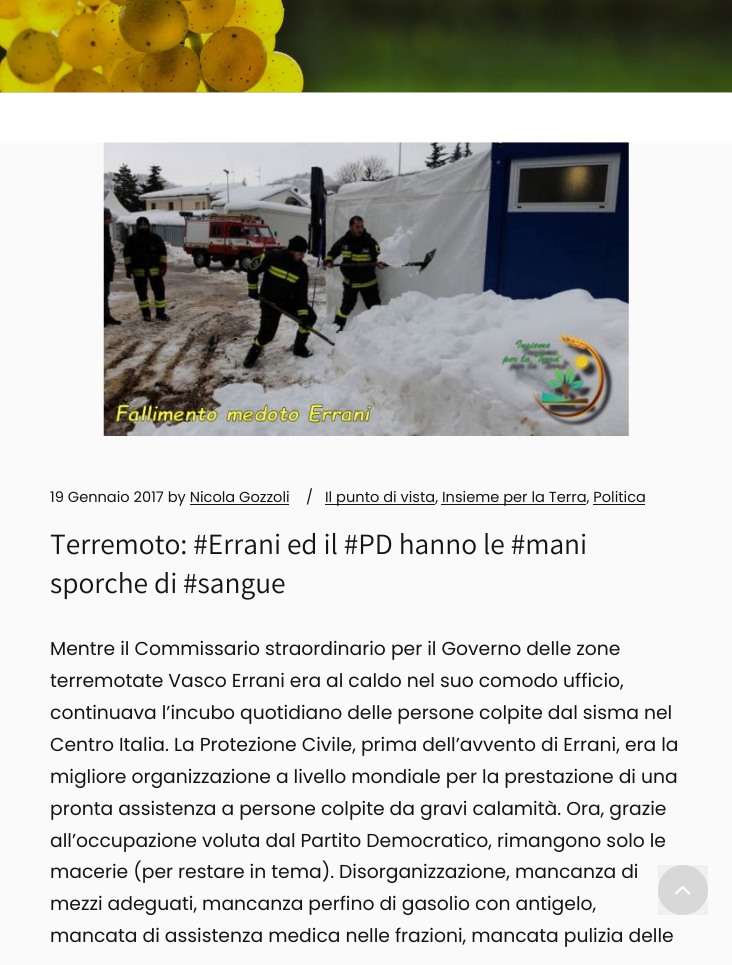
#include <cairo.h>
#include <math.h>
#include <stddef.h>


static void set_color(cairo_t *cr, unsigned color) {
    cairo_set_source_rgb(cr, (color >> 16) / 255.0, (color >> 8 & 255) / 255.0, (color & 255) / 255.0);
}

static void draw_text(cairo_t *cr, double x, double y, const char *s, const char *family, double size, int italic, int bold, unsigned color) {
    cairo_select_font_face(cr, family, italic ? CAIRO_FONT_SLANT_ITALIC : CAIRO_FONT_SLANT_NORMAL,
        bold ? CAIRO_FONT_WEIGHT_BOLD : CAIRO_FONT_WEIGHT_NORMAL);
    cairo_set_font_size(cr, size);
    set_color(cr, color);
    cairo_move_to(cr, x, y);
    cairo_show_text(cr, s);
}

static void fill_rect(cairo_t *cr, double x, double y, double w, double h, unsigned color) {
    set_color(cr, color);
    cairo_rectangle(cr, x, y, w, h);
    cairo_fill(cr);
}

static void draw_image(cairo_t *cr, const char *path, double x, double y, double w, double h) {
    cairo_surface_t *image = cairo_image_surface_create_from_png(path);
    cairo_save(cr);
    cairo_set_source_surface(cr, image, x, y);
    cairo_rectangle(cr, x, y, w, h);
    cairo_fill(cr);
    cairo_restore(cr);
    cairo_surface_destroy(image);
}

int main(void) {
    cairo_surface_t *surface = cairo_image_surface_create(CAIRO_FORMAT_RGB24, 732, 965);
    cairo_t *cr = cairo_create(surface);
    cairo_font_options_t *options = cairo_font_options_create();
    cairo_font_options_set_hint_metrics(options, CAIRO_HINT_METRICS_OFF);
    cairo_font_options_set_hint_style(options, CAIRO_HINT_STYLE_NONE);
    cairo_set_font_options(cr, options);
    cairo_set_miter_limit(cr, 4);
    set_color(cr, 0xFFFFFF);
    cairo_paint(cr);
    fill_rect(cr, 0, 92, 732, 1, 0xCCCCCC);
    draw_image(cr, "assets/img1.png", 0, 0, 732, 93);
    fill_rect(cr, 0, 143, 732, 822, 0xFAFAFA);
    draw_image(cr, "assets/img2.png", 103, 142, 526, 294);
    draw_text(cr, 50, 502, "19 Gennaio 2017 by Nicola Gozzoli", "Poppins", 14.6, 0, 0, 0x141414);
    draw_text(cr, 306, 502, "/", "Poppins", 14.6, 0, 0, 0x141414);
    fill_rect(cr, 325, 504, 110, 1, 0x141414);
    draw_text(cr, 325, 502, "Il punto di vista,", "Poppins", 14.6, 0, 0, 0x141414);
    fill_rect(cr, 441, 504, 145, 1, 0x141414);
    draw_text(cr, 442, 502, "Insieme per la Terra, Politica", "Poppins", 14.6, 0, 0, 0x141414);
    fill_rect(cr, 593, 504, 52, 1, 0x141414);
    fill_rect(cr, 190, 504, 99, 1, 0x141414);
    draw_text(cr, 50, 554, "Terremoto: #Errani ed il #PD hanno le #mani", "Assistant", 29.4, 0, 0, 0x141414);
    draw_text(cr, 50, 593, "sporche di #sangue", "Assistant", 29.4, 0, 0, 0x141414);
    draw_text(cr, 50, 655, "Mentre il Commissario straordinario per il Governo delle zone", "Poppins", 18.75, 0, 0, 0x141414);
    draw_text(cr, 50, 687, "terremotate Vasco Errani era al caldo nel suo comodo ufficio,", "Poppins", 18.75, 0, 0, 0x141414);
    draw_text(cr, 50, 719, "continuava l’incubo quotidiano delle persone colpite dal sisma nel", "Poppins", 18.75, 0, 0, 0x141414);
    draw_text(cr, 50, 751, "Centro Italia. La Protezione Civile, prima dell’avvento di Errani, era la", "Poppins", 18.75, 0, 0, 0x141414);
    draw_text(cr, 50, 783, "migliore organizzazione a livello mondiale per la prestazione di una", "Poppins", 18.75, 0, 0, 0x141414);
    draw_text(cr, 50, 815, "pronta assistenza a persone colpite da gravi calamità. Ora, grazie", "Poppins", 18.75, 0, 0, 0x141414);
    draw_text(cr, 50, 847, "all’occupazione voluta dal Partito Democratico, rimangono solo le", "Poppins", 18.75, 0, 0, 0x141414);
    draw_text(cr, 50, 878, "macerie (per restare in tema). Disorganizzazione, mancanza di", "Poppins", 18.75, 0, 0, 0x141414);
    draw_text(cr, 50, 910, "mezzi adeguati, mancanza perfino di gasolio con antigelo,", "Poppins", 18.75, 0, 0, 0x141414);
    draw_text(cr, 50, 942, "mancata di assistenza medica nelle frazioni, mancata pulizia delle", "Poppins", 18.75, 0, 0, 0x141414);
    set_color(cr, 0xE1E1E1);
    cairo_new_path(cr);
    cairo_arc(cr, 683, 890, 25, 0, 2 * M_PI);
    cairo_fill(cr);
    cairo_set_source_rgba(cr, 0, 0, 0, 0.04);
    cairo_rectangle(cr, 658, 865, 50, 50);
    cairo_fill(cr);
    draw_image(cr, "assets/img3.png", 675, 885, 16, 10);
    cairo_surface_write_to_png(surface, "output.png");
    cairo_font_options_destroy(options);
    cairo_destroy(cr);
    cairo_surface_destroy(surface);
    return 0;
}
